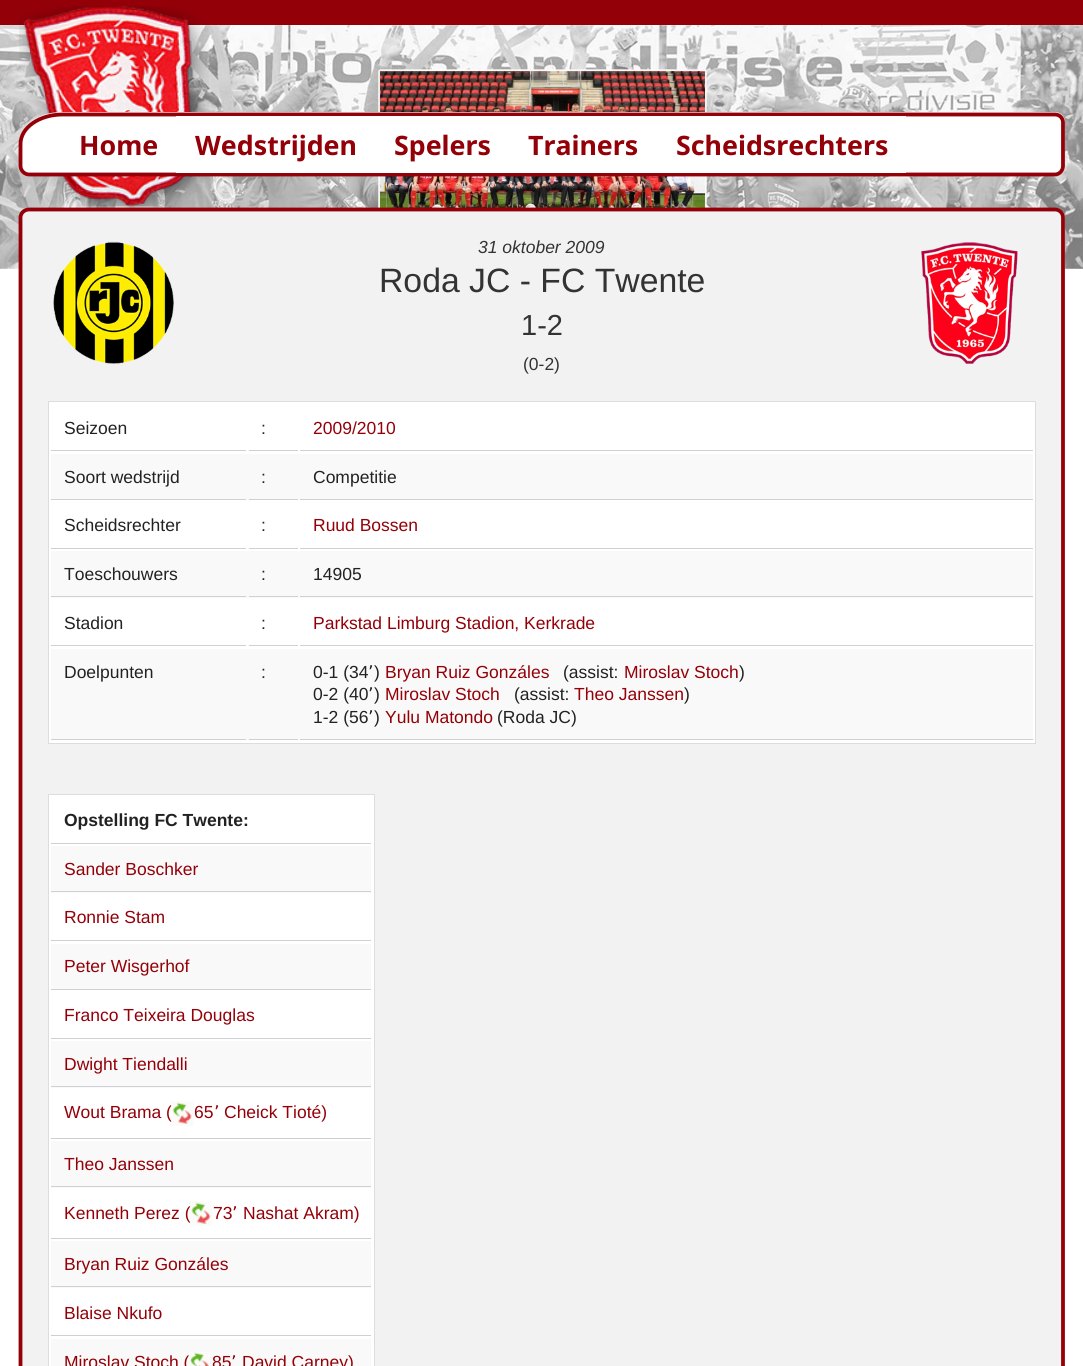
#include <cairo.h>
#include <math.h>
#include <stddef.h>


static void set_color(cairo_t *cr, unsigned color) {
    cairo_set_source_rgb(cr, (color >> 16) / 255.0, (color >> 8 & 255) / 255.0, (color & 255) / 255.0);
}

static void draw_text(cairo_t *cr, double x, double y, const char *s, const char *family, double size, int italic, int bold, unsigned color) {
    cairo_select_font_face(cr, family, italic ? CAIRO_FONT_SLANT_ITALIC : CAIRO_FONT_SLANT_NORMAL,
        bold ? CAIRO_FONT_WEIGHT_BOLD : CAIRO_FONT_WEIGHT_NORMAL);
    cairo_set_font_size(cr, size);
    set_color(cr, color);
    cairo_move_to(cr, x, y);
    cairo_show_text(cr, s);
}

static void fill_rect(cairo_t *cr, double x, double y, double w, double h, unsigned color) {
    set_color(cr, color);
    cairo_rectangle(cr, x, y, w, h);
    cairo_fill(cr);
}

static void draw_image(cairo_t *cr, const char *path, double x, double y, double w, double h) {
    cairo_surface_t *image = cairo_image_surface_create_from_png(path);
    cairo_save(cr);
    cairo_set_source_surface(cr, image, x, y);
    cairo_rectangle(cr, x, y, w, h);
    cairo_fill(cr);
    cairo_restore(cr);
    cairo_surface_destroy(image);
}

int main(void) {
    cairo_surface_t *surface = cairo_image_surface_create(CAIRO_FORMAT_RGB24, 1083, 1366);
    cairo_t *cr = cairo_create(surface);
    cairo_font_options_t *options = cairo_font_options_create();
    cairo_font_options_set_hint_metrics(options, CAIRO_HINT_METRICS_OFF);
    cairo_font_options_set_hint_style(options, CAIRO_HINT_STYLE_NONE);
    cairo_set_font_options(cr, options);
    cairo_set_miter_limit(cr, 4);
    set_color(cr, 0xFFFFFF);
    cairo_paint(cr);
    fill_rect(cr, 0, 0, 1083, 25, 0x940008);
    draw_image(cr, "assets/img2.png", 0, 25, 1083, 244);
    draw_image(cr, "assets/img1.png", 19, 6, 190, 201);
    set_color(cr, 0xFFFFFF);
    cairo_new_path(cr);
    cairo_move_to(cr, 62, 112);
    cairo_line_to(cr, 1055, 112);
    cairo_curve_to(cr, 1061, 112, 1065, 117, 1065, 122);
    cairo_line_to(cr, 1065, 166);
    cairo_curve_to(cr, 1065, 172, 1061, 176, 1055, 176);
    cairo_line_to(cr, 29, 176);
    cairo_curve_to(cr, 23, 176, 19, 172, 19, 166);
    cairo_line_to(cr, 19, 144);
    cairo_curve_to(cr, 19, 126, 38, 112, 62, 112);
    cairo_close_path(cr);
    cairo_fill(cr);
    cairo_new_path(cr);
    cairo_move_to(cr, 62.5, 114.5);
    cairo_line_to(cr, 1055, 114.5);
    cairo_curve_to(cr, 1059.5, 114.5, 1063, 118, 1063, 122.5);
    cairo_line_to(cr, 1063, 166);
    cairo_curve_to(cr, 1063, 170.5, 1059.5, 174.5, 1055, 174.5);
    cairo_line_to(cr, 29, 174.5);
    cairo_curve_to(cr, 24.5, 174.5, 20.5, 170.5, 20.5, 166);
    cairo_line_to(cr, 20.5, 144);
    cairo_curve_to(cr, 20.5, 127.5, 39.5, 114.5, 62.5, 114.5);
    cairo_close_path(cr);
    set_color(cr, 0x940008);
    cairo_set_line_width(cr, 3.8);
    cairo_stroke(cr);
    draw_text(cr, 79, 155, "Home", "Noto Sans", 26.75, 0, 1, 0x940008);
    fill_rect(cr, 176, 116, 730, 57, 0xFFFFFF);
    draw_text(cr, 195, 155, "Wedstrijden", "Noto Sans", 26.75, 0, 1, 0x940008);
    draw_text(cr, 394, 155, "Spelers", "Noto Sans", 26.75, 0, 1, 0x940008);
    draw_text(cr, 528, 155, "Trainers", "Noto Sans", 26.75, 0, 1, 0x940008);
    draw_text(cr, 676, 155, "Scheidsrechters", "Noto Sans", 26.75, 0, 1, 0x940008);
    set_color(cr, 0xF2F2F2);
    cairo_new_path(cr);
    cairo_move_to(cr, 29, 208);
    cairo_line_to(cr, 1055, 208);
    cairo_curve_to(cr, 1061, 208, 1065, 212, 1065, 218);
    cairo_line_to(cr, 1065, 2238);
    cairo_curve_to(cr, 1065, 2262, 1051, 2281, 1034, 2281);
    cairo_line_to(cr, 29, 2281);
    cairo_curve_to(cr, 23, 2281, 19, 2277, 19, 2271);
    cairo_line_to(cr, 19, 218);
    cairo_curve_to(cr, 19, 212, 23, 208, 29, 208);
    cairo_close_path(cr);
    cairo_fill(cr);
    cairo_new_path(cr);
    cairo_move_to(cr, 29, 209.5);
    cairo_line_to(cr, 1055, 209.5);
    cairo_curve_to(cr, 1059.5, 209.5, 1063, 213, 1063, 217.5);
    cairo_line_to(cr, 1063, 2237.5);
    cairo_curve_to(cr, 1063, 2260.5, 1050, 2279.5, 1034, 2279.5);
    cairo_line_to(cr, 29, 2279.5);
    cairo_curve_to(cr, 24.5, 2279.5, 20.5, 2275.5, 20.5, 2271);
    cairo_line_to(cr, 20.5, 217.5);
    cairo_curve_to(cr, 20.5, 213, 24.5, 209.5, 29, 209.5);
    cairo_close_path(cr);
    set_color(cr, 0x940008);
    cairo_stroke(cr);
    draw_image(cr, "assets/img3.png", 53, 241, 121, 123);
    draw_text(cr, 478, 253, "31 oktober 2009", "Liberation Sans", 17.5, 1, 0, 0x333333);
    draw_text(cr, 379, 292, "Roda JC - FC Twente", "Liberation Sans", 33.75, 0, 0, 0x333333);
    draw_text(cr, 521, 335, "1-2", "Liberation Sans", 29, 0, 0, 0x333333);
    draw_text(cr, 523, 370, "(0-2)", "Liberation Sans", 17.5, 0, 0, 0x333333);
    draw_image(cr, "assets/img4.png", 921, 242, 97, 122);
    set_color(cr, 0xFFFFFF);
    cairo_rectangle(cr, 48.5, 401.5, 987, 342);
    cairo_fill_preserve(cr);
    set_color(cr, 0xDDDDDD);
    cairo_set_line_width(cr, 1);
    cairo_stroke(cr);
    fill_rect(cr, 51, 450, 195, 1, 0xCDD0D4);
    draw_text(cr, 64, 434, "Seizoen", "Liberation Sans", 17.5, 0, 0, 0x222222);
    fill_rect(cr, 249, 450, 49, 1, 0xCDD0D4);
    draw_text(cr, 261, 434, ":", "Liberation Sans", 17.5, 0, 0, 0x222222);
    fill_rect(cr, 300, 450, 733, 1, 0xCDD0D4);
    draw_text(cr, 313, 434, "2009/2010", "Liberation Sans", 17.5, 0, 0, 0x940008);
    fill_rect(cr, 51, 454, 982, 46, 0xF9F9F9);
    fill_rect(cr, 51, 499, 195, 1, 0xCDD0D4);
    draw_text(cr, 64, 483, "Soort wedstrijd", "Liberation Sans", 17.5, 0, 0, 0x222222);
    fill_rect(cr, 249, 499, 49, 1, 0xCDD0D4);
    draw_text(cr, 261, 483, ":", "Liberation Sans", 17.5, 0, 0, 0x222222);
    fill_rect(cr, 300, 499, 733, 1, 0xCDD0D4);
    draw_text(cr, 313, 483, "Competitie", "Liberation Sans", 17.5, 0, 0, 0x222222);
    fill_rect(cr, 51, 548, 195, 1, 0xCDD0D4);
    draw_text(cr, 64, 531, "Scheidsrechter", "Liberation Sans", 17.5, 0, 0, 0x222222);
    fill_rect(cr, 249, 548, 49, 1, 0xCDD0D4);
    draw_text(cr, 261, 531, ":", "Liberation Sans", 17.5, 0, 0, 0x222222);
    fill_rect(cr, 300, 548, 733, 1, 0xCDD0D4);
    draw_text(cr, 313, 531, "Ruud Bossen", "Liberation Sans", 17.5, 0, 0, 0x940008);
    fill_rect(cr, 51, 551, 982, 47, 0xF9F9F9);
    fill_rect(cr, 51, 596, 195, 1, 0xCDD0D4);
    draw_text(cr, 64, 580, "Toeschouwers", "Liberation Sans", 17.5, 0, 0, 0x222222);
    fill_rect(cr, 249, 596, 49, 1, 0xCDD0D4);
    draw_text(cr, 261, 580, ":", "Liberation Sans", 17.5, 0, 0, 0x222222);
    fill_rect(cr, 300, 596, 733, 1, 0xCDD0D4);
    draw_text(cr, 313, 580, "14905", "Liberation Sans", 17.5, 0, 0, 0x222222);
    fill_rect(cr, 51, 645, 195, 1, 0xCDD0D4);
    draw_text(cr, 64, 629, "Stadion", "Liberation Sans", 17.5, 0, 0, 0x222222);
    fill_rect(cr, 249, 645, 49, 1, 0xCDD0D4);
    draw_text(cr, 261, 629, ":", "Liberation Sans", 17.5, 0, 0, 0x222222);
    fill_rect(cr, 300, 645, 733, 1, 0xCDD0D4);
    draw_text(cr, 313, 629, "Parkstad Limburg Stadion, Kerkrade", "Liberation Sans", 17.5, 0, 0, 0x940008);
    fill_rect(cr, 51, 649, 982, 91, 0xF9F9F9);
    fill_rect(cr, 51, 739, 195, 1, 0xCDD0D4);
    draw_text(cr, 64, 678, "Doelpunten", "Liberation Sans", 17.5, 0, 0, 0x222222);
    fill_rect(cr, 249, 739, 49, 1, 0xCDD0D4);
    draw_text(cr, 261, 678, ":", "Liberation Sans", 17.5, 0, 0, 0x222222);
    fill_rect(cr, 300, 739, 733, 1, 0xCDD0D4);
    draw_text(cr, 313, 678, "0-1 (34", "Liberation Sans", 17.5, 0, 0, 0x222222);
    draw_text(cr, 368, 678, "՚", "DejaVu Sans", 17.5, 0, 0, 0x222222);
    draw_text(cr, 374, 678, ")", "Liberation Sans", 17.5, 0, 0, 0x222222);
    draw_text(cr, 385, 678, "Bryan Ruiz Gonzáles", "Liberation Sans", 17.5, 0, 0, 0x940008);
    draw_text(cr, 563, 678, "(assist:", "Liberation Sans", 17.5, 0, 0, 0x222222);
    draw_text(cr, 624, 678, "Miroslav Stoch", "Liberation Sans", 17.5, 0, 0, 0x940008);
    draw_text(cr, 739, 678, ")", "Liberation Sans", 17.5, 0, 0, 0x222222);
    draw_text(cr, 313, 700, "0-2 (40", "Liberation Sans", 17.5, 0, 0, 0x222222);
    draw_text(cr, 368, 700, "՚", "DejaVu Sans", 17.5, 0, 0, 0x222222);
    draw_text(cr, 374, 700, ")", "Liberation Sans", 17.5, 0, 0, 0x222222);
    draw_text(cr, 385, 700, "Miroslav Stoch", "Liberation Sans", 17.5, 0, 0, 0x940008);
    draw_text(cr, 514, 700, "(assist:", "Liberation Sans", 17.5, 0, 0, 0x222222);
    draw_text(cr, 574, 700, "Theo Janssen", "Liberation Sans", 17.5, 0, 0, 0x940008);
    draw_text(cr, 684, 700, ")", "Liberation Sans", 17.5, 0, 0, 0x222222);
    draw_text(cr, 313, 723, "1-2 (56", "Liberation Sans", 17.5, 0, 0, 0x222222);
    draw_text(cr, 368, 723, "՚", "DejaVu Sans", 17.5, 0, 0, 0x222222);
    draw_text(cr, 374, 723, ")", "Liberation Sans", 17.5, 0, 0, 0x222222);
    draw_text(cr, 385, 723, "Yulu Matondo", "Liberation Sans", 17.5, 0, 0, 0x940008);
    draw_text(cr, 497, 723, "(Roda JC)", "Liberation Sans", 17.5, 0, 0, 0x222222);
    set_color(cr, 0xFFFFFF);
    cairo_rectangle(cr, 48.5, 794.5, 326, 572);
    cairo_fill_preserve(cr);
    set_color(cr, 0xDDDDDD);
    cairo_stroke(cr);
    fill_rect(cr, 51, 843, 320, 1, 0xCDD0D4);
    draw_text(cr, 64, 826, "Opstelling FC Twente:", "Liberation Sans", 17.5, 0, 1, 0x222222);
    fill_rect(cr, 51, 846, 320, 47, 0xF9F9F9);
    fill_rect(cr, 51, 891, 320, 1, 0xCDD0D4);
    draw_text(cr, 64, 875, "Sander Boschker", "Liberation Sans", 17.5, 0, 0, 0x940008);
    fill_rect(cr, 51, 940, 320, 1, 0xCDD0D4);
    draw_text(cr, 64, 923, "Ronnie Stam", "Liberation Sans", 17.5, 0, 0, 0x940008);
    fill_rect(cr, 51, 944, 320, 45, 0xF9F9F9);
    fill_rect(cr, 51, 989, 320, 1, 0xCDD0D4);
    draw_text(cr, 64, 972, "Peter Wisgerhof", "Liberation Sans", 17.5, 0, 0, 0x940008);
    fill_rect(cr, 51, 1038, 320, 1, 0xCDD0D4);
    draw_text(cr, 64, 1021, "Franco Teixeira Douglas", "Liberation Sans", 17.5, 0, 0, 0x940008);
    fill_rect(cr, 51, 1041, 320, 47, 0xF9F9F9);
    fill_rect(cr, 51, 1086, 320, 1, 0xCDD0D4);
    draw_text(cr, 64, 1070, "Dwight Tiendalli", "Liberation Sans", 17.5, 0, 0, 0x940008);
    fill_rect(cr, 51, 1138, 320, 1, 0xCDD0D4);
    draw_text(cr, 64, 1118, "Wout Brama (", "Liberation Sans", 17.5, 0, 0, 0x940008);
    draw_image(cr, "assets/img5.png", 171, 1101, 23, 25);
    draw_text(cr, 194, 1118, "65", "Liberation Sans", 17.5, 0, 0, 0x940008);
    draw_text(cr, 214, 1118, "՚", "DejaVu Sans", 17.5, 0, 0, 0x940008);
    draw_text(cr, 224, 1118, "Cheick Tioté)", "Liberation Sans", 17.5, 0, 0, 0x940008);
    fill_rect(cr, 51, 1141, 320, 47, 0xF9F9F9);
    fill_rect(cr, 51, 1186, 320, 1, 0xCDD0D4);
    draw_text(cr, 64, 1170, "Theo Janssen", "Liberation Sans", 17.5, 0, 0, 0x940008);
    fill_rect(cr, 51, 1238, 320, 1, 0xCDD0D4);
    draw_text(cr, 64, 1219, "Kenneth Perez (", "Liberation Sans", 17.5, 0, 0, 0x940008);
    draw_image(cr, "assets/img6.png", 190, 1201, 22, 25);
    draw_text(cr, 213, 1219, "73", "Liberation Sans", 17.5, 0, 0, 0x940008);
    draw_text(cr, 232, 1219, "՚", "DejaVu Sans", 17.5, 0, 0, 0x940008);
    draw_text(cr, 243, 1219, "Nashat Akram)", "Liberation Sans", 17.5, 0, 0, 0x940008);
    fill_rect(cr, 51, 1241, 320, 47, 0xF9F9F9);
    fill_rect(cr, 51, 1286, 320, 1, 0xCDD0D4);
    draw_text(cr, 64, 1270, "Bryan Ruiz Gonzáles", "Liberation Sans", 17.5, 0, 0, 0x940008);
    fill_rect(cr, 51, 1335, 320, 1, 0xCDD0D4);
    draw_text(cr, 64, 1319, "Blaise Nkufo", "Liberation Sans", 17.5, 0, 0, 0x940008);
    fill_rect(cr, 51, 1339, 320, 27, 0xF9F9F9);
    draw_text(cr, 64, 1368, "Miroslav Stoch (", "Liberation Sans", 17.5, 0, 0, 0x940008);
    draw_image(cr, "assets/img7.png", 188, 1352, 22, 14);
    draw_text(cr, 212, 1368, "85", "Liberation Sans", 17.5, 0, 0, 0x940008);
    draw_text(cr, 231, 1368, "՚", "DejaVu Sans", 17.5, 0, 0, 0x940008);
    draw_text(cr, 242, 1368, "David Carney)", "Liberation Sans", 17.5, 0, 0, 0x940008);
    cairo_surface_write_to_png(surface, "output.png");
    cairo_font_options_destroy(options);
    cairo_destroy(cr);
    cairo_surface_destroy(surface);
    return 0;
}
